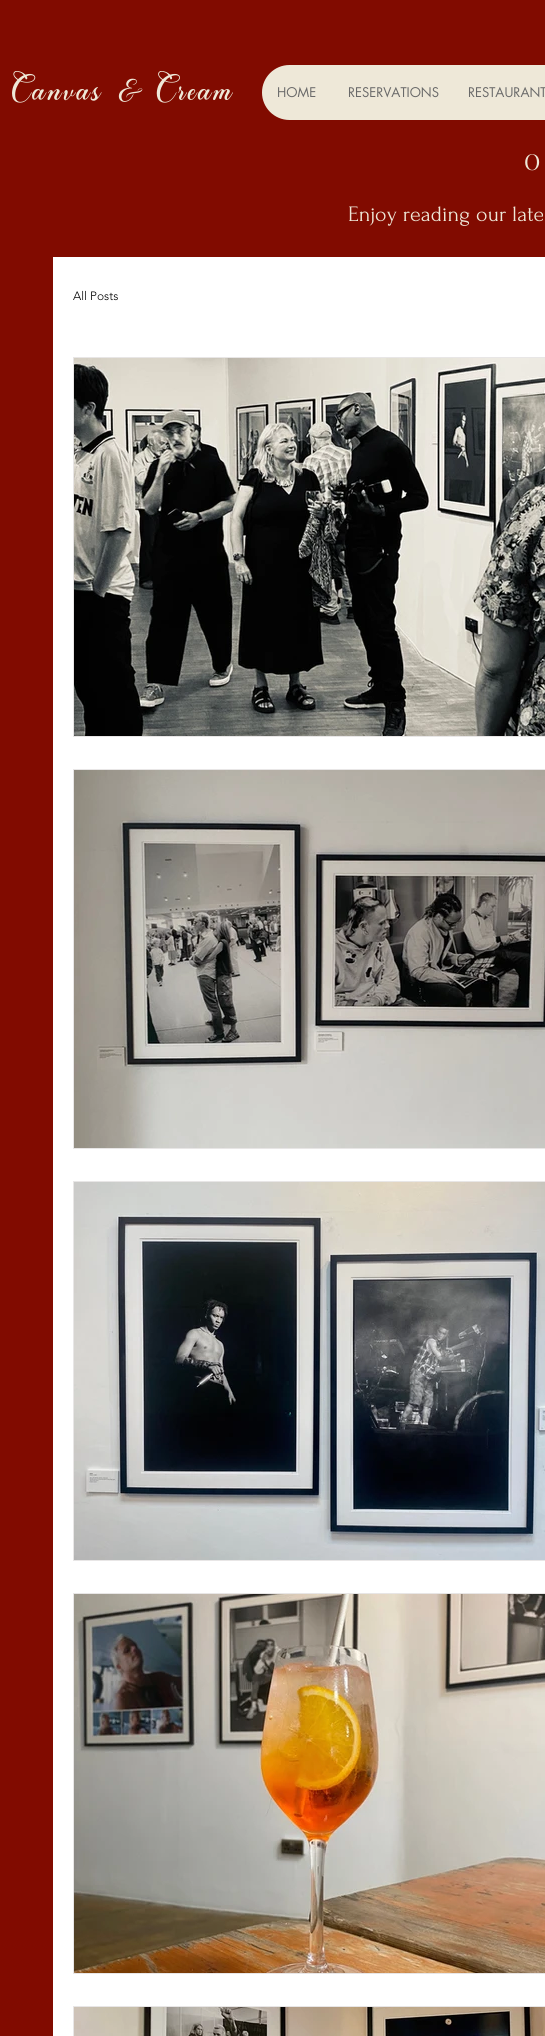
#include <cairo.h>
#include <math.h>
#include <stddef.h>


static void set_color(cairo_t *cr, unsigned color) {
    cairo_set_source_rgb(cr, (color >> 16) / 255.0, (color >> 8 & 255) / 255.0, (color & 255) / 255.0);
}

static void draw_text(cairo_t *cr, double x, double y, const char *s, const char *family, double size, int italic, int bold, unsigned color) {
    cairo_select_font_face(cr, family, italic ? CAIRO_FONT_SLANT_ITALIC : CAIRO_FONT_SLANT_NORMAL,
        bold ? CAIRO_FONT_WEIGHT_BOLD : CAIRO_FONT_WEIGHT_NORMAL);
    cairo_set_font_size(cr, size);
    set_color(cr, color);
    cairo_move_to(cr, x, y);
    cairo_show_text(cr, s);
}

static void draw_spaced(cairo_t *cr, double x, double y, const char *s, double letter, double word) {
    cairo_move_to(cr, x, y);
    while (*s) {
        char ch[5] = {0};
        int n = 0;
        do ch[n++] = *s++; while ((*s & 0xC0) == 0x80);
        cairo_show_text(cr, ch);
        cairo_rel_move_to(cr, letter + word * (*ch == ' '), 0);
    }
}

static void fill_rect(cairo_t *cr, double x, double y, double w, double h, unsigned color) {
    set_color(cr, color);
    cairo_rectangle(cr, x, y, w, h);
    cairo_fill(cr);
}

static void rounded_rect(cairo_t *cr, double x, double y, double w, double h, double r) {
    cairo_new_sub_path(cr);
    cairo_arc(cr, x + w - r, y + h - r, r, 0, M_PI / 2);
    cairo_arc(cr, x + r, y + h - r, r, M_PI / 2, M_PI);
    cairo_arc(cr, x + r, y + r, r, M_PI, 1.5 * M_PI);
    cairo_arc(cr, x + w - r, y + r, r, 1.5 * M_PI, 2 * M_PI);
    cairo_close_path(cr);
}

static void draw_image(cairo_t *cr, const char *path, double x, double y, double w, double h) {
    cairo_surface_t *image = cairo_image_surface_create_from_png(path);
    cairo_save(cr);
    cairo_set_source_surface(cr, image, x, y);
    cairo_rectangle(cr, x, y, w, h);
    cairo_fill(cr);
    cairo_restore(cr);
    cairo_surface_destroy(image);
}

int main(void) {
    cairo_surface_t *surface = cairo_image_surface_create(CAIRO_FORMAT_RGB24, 545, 2036);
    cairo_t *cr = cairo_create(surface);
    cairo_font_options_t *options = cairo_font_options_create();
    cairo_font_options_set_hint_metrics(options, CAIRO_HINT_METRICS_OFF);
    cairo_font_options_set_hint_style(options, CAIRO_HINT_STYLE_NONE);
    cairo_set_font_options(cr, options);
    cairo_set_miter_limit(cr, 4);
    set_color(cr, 0x810B00);
    cairo_paint(cr);
    cairo_select_font_face(cr, "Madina", CAIRO_FONT_SLANT_NORMAL, CAIRO_FONT_WEIGHT_NORMAL);
    cairo_set_font_size(cr, 44);
    set_color(cr, 0xEEE8D8);
    draw_spaced(cr, 12, 100, "Canvas & Cream", 2.25, 0);
    rounded_rect(cr, 262, 65, 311, 55, 27.5);
    cairo_fill(cr);
    draw_text(cr, 277, 97, "HOME", "futura", 13, 0, 0, 0x696969);
    draw_text(cr, 348, 97, "RESERVATIONS", "futura", 13, 0, 0, 0x696969);
    draw_text(cr, 468, 97, "RESTAURANT", "futura", 13, 0, 0, 0x696969);
    draw_text(cr, 524, 170, "O", "Playfair Display", 22, 0, 0, 0xEEE8D8);
    draw_text(cr, 348, 221, "Enjoy reading our late", "Forum", 22, 0, 0, 0xEEE8D8);
    fill_rect(cr, 53, 257, 492, 1779, 0xFFFFFF);
    draw_text(cr, 73, 300, "All Posts", "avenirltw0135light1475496 Light", 12, 0, 0, 0x000000);
    cairo_rectangle(cr, 73.5, 357.5, 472, 379);
    set_color(cr, 0xE8E6E6);
    cairo_set_line_width(cr, 1);
    cairo_stroke(cr);
    draw_image(cr, "assets/img1.png", 74, 358, 471, 378);
    cairo_rectangle(cr, 73.5, 769.5, 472, 379);
    cairo_stroke(cr);
    draw_image(cr, "assets/img2.png", 74, 770, 471, 378);
    cairo_rectangle(cr, 73.5, 1181.5, 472, 379);
    cairo_stroke(cr);
    draw_image(cr, "assets/img3.png", 74, 1182, 471, 378);
    cairo_rectangle(cr, 73.5, 1593.5, 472, 380);
    cairo_stroke(cr);
    draw_image(cr, "assets/img4.png", 74, 1594, 471, 379);
    cairo_rectangle(cr, 73.5, 2006.5, 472, 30);
    cairo_stroke(cr);
    draw_image(cr, "assets/img5.png", 74, 2007, 471, 29);
    cairo_surface_write_to_png(surface, "output.png");
    cairo_font_options_destroy(options);
    cairo_destroy(cr);
    cairo_surface_destroy(surface);
    return 0;
}
